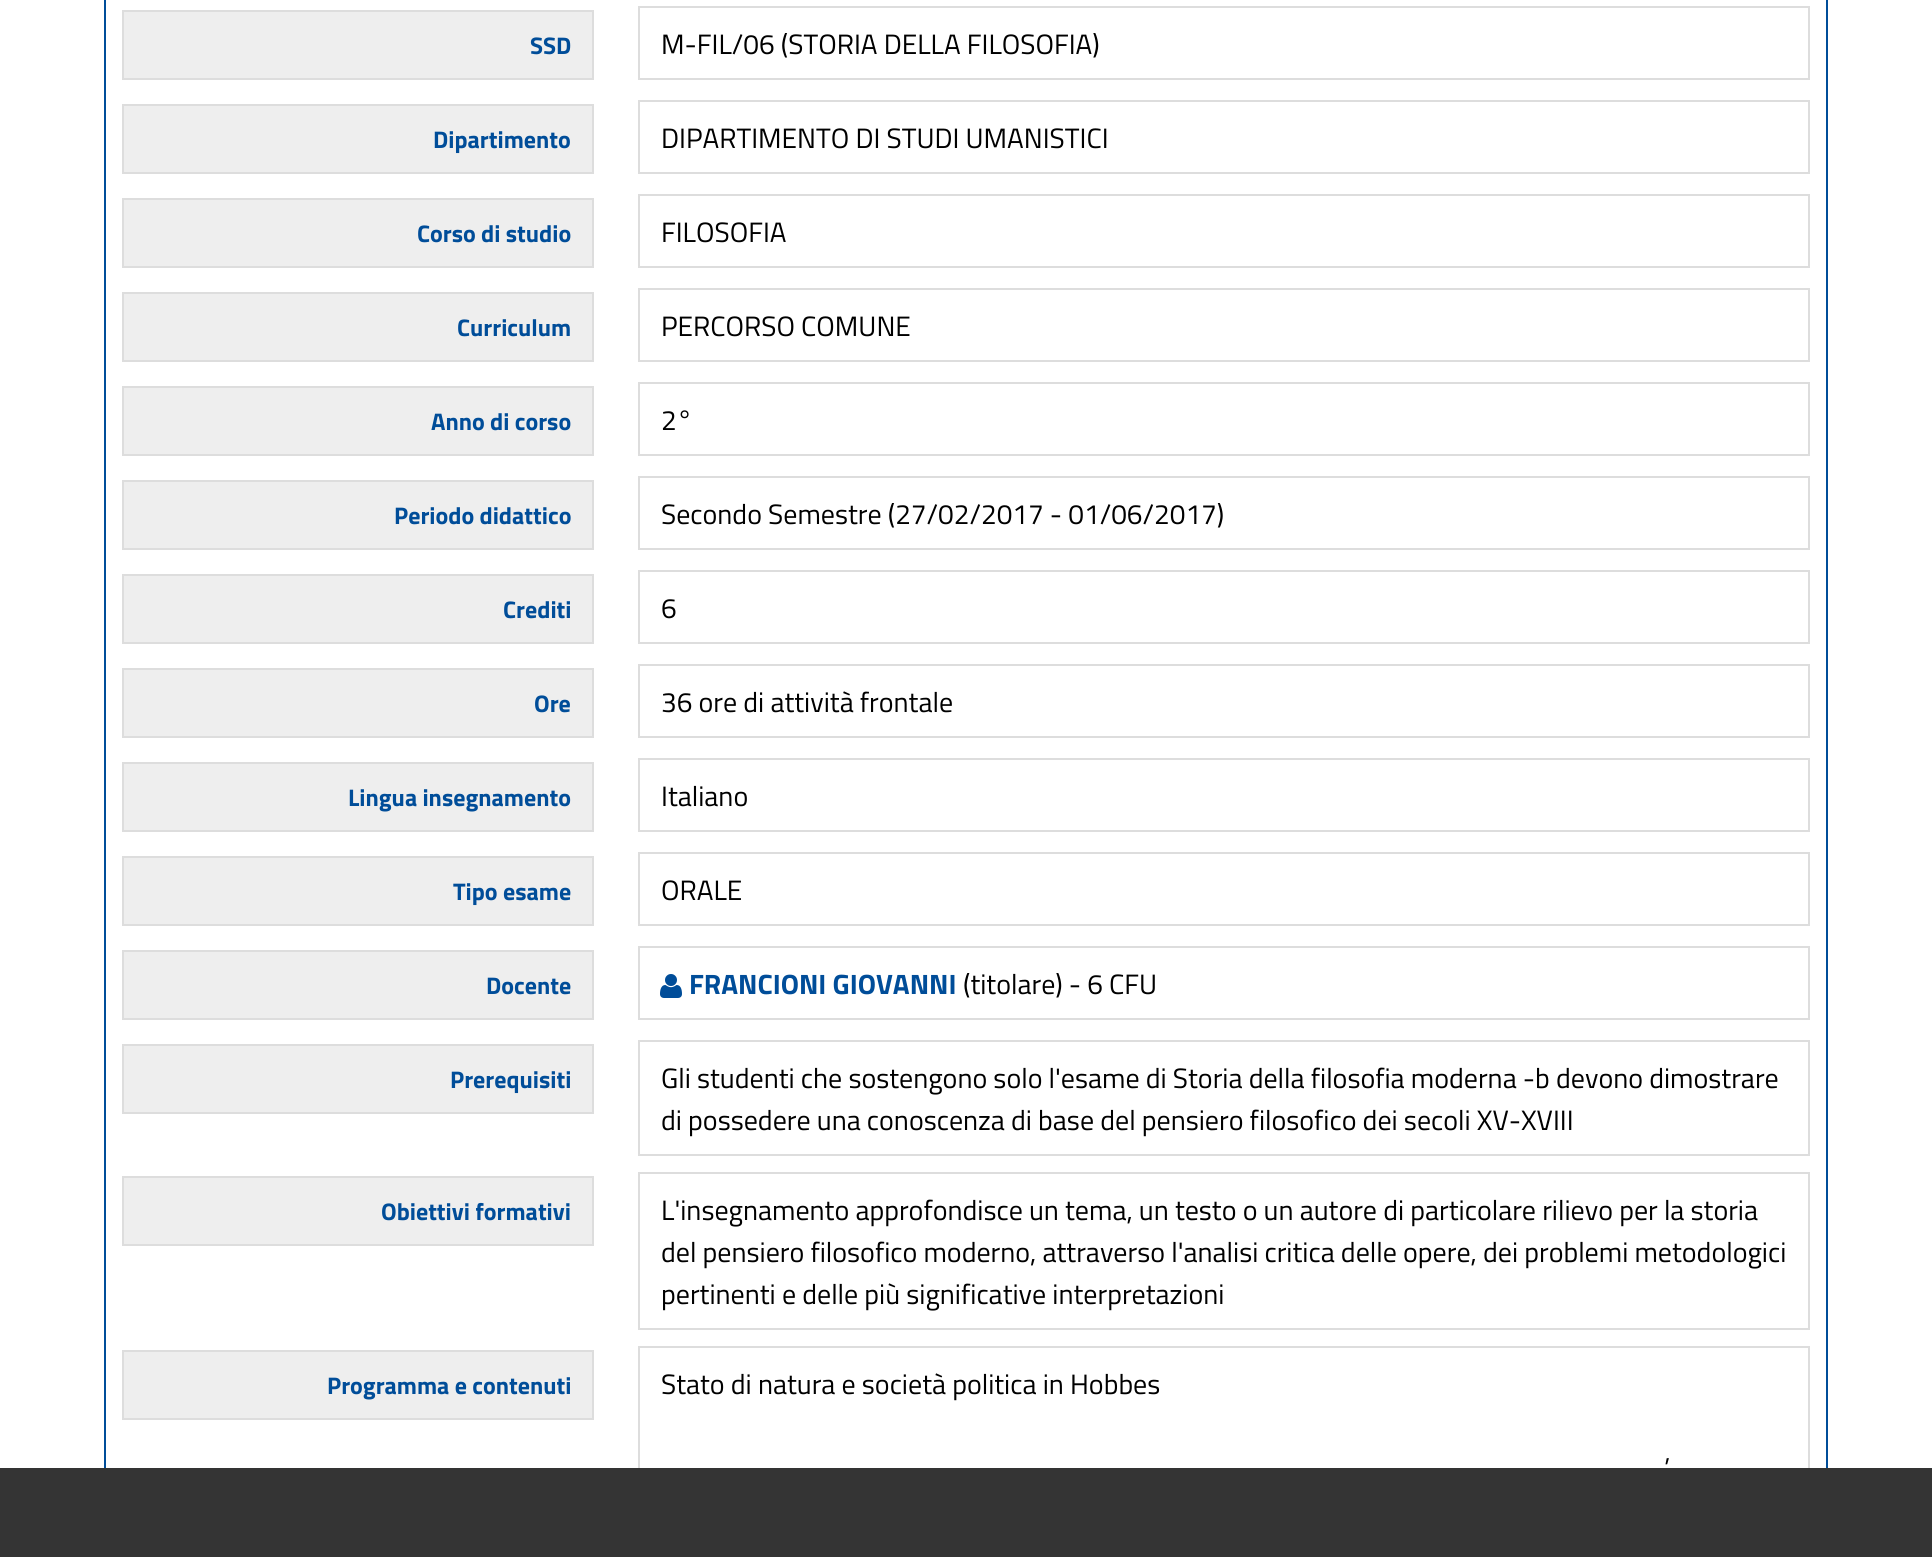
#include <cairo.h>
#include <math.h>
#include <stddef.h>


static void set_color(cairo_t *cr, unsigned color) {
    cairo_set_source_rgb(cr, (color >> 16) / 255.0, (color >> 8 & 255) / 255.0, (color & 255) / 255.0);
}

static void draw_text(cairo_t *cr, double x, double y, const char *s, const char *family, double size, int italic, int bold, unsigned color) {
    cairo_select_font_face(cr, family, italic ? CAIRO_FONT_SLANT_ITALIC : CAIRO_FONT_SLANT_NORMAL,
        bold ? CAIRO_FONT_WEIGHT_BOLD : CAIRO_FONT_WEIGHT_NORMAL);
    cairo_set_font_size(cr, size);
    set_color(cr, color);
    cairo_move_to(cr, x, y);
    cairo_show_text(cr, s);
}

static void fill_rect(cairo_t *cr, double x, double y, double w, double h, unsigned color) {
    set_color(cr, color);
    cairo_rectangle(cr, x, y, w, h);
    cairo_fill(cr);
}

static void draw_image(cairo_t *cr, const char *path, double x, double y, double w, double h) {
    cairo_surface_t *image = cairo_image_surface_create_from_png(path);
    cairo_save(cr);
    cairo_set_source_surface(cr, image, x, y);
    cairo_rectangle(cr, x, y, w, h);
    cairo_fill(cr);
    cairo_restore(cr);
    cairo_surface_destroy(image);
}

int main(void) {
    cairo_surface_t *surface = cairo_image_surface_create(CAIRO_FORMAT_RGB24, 1932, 1557);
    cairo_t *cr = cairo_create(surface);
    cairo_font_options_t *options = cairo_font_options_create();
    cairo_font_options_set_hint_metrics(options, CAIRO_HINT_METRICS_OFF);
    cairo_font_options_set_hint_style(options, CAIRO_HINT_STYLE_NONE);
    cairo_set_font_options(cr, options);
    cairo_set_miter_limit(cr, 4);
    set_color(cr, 0xFFFFFF);
    cairo_paint(cr);
    cairo_rectangle(cr, 105, -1, 1722, 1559);
    set_color(cr, 0x004D99);
    cairo_stroke(cr);
    set_color(cr, 0xEEEEEE);
    cairo_rectangle(cr, 123, 11, 470, 68);
    cairo_fill_preserve(cr);
    set_color(cr, 0xDDDDDD);
    cairo_stroke(cr);
    draw_text(cr, 530, 54, "SSD", "Titillium Web", 24, 0, 1, 0x004D99);
    cairo_rectangle(cr, 639, 7, 1170, 72);
    set_color(cr, 0xDDDDDD);
    cairo_stroke(cr);
    draw_text(cr, 661, 54, "M-FIL/06 (STORIA DELLA FILOSOFIA)", "Titillium Web", 28, 0, 0, 0x000000);
    set_color(cr, 0xEEEEEE);
    cairo_rectangle(cr, 123, 105, 470, 68);
    cairo_fill_preserve(cr);
    set_color(cr, 0xDDDDDD);
    cairo_stroke(cr);
    draw_text(cr, 433, 148, "Dipartimento", "Titillium Web", 24, 0, 1, 0x004D99);
    cairo_rectangle(cr, 639, 101, 1170, 72);
    set_color(cr, 0xDDDDDD);
    cairo_stroke(cr);
    draw_text(cr, 661, 148, "DIPARTIMENTO DI STUDI UMANISTICI", "Titillium Web", 28, 0, 0, 0x000000);
    set_color(cr, 0xEEEEEE);
    cairo_rectangle(cr, 123, 199, 470, 68);
    cairo_fill_preserve(cr);
    set_color(cr, 0xDDDDDD);
    cairo_stroke(cr);
    draw_text(cr, 417, 242, "Corso di studio", "Titillium Web", 24, 0, 1, 0x004D99);
    cairo_rectangle(cr, 639, 195, 1170, 72);
    set_color(cr, 0xDDDDDD);
    cairo_stroke(cr);
    draw_text(cr, 661, 242, "FILOSOFIA", "Titillium Web", 28, 0, 0, 0x000000);
    set_color(cr, 0xEEEEEE);
    cairo_rectangle(cr, 123, 293, 470, 68);
    cairo_fill_preserve(cr);
    set_color(cr, 0xDDDDDD);
    cairo_stroke(cr);
    draw_text(cr, 457, 336, "Curriculum", "Titillium Web", 24, 0, 1, 0x004D99);
    cairo_rectangle(cr, 639, 289, 1170, 72);
    set_color(cr, 0xDDDDDD);
    cairo_stroke(cr);
    draw_text(cr, 661, 336, "PERCORSO COMUNE", "Titillium Web", 28, 0, 0, 0x000000);
    set_color(cr, 0xEEEEEE);
    cairo_rectangle(cr, 123, 387, 470, 68);
    cairo_fill_preserve(cr);
    set_color(cr, 0xDDDDDD);
    cairo_stroke(cr);
    draw_text(cr, 431, 430, "Anno di corso", "Titillium Web", 24, 0, 1, 0x004D99);
    cairo_rectangle(cr, 639, 383, 1170, 72);
    set_color(cr, 0xDDDDDD);
    cairo_stroke(cr);
    draw_text(cr, 661, 430, "2°", "Titillium Web", 28, 0, 0, 0x000000);
    set_color(cr, 0xEEEEEE);
    cairo_rectangle(cr, 123, 481, 470, 68);
    cairo_fill_preserve(cr);
    set_color(cr, 0xDDDDDD);
    cairo_stroke(cr);
    draw_text(cr, 394, 524, "Periodo didattico", "Titillium Web", 24, 0, 1, 0x004D99);
    cairo_rectangle(cr, 639, 477, 1170, 72);
    set_color(cr, 0xDDDDDD);
    cairo_stroke(cr);
    draw_text(cr, 661, 524, "Secondo Semestre (27/02/2017 - 01/06/2017)", "Titillium Web", 28, 0, 0, 0x000000);
    set_color(cr, 0xEEEEEE);
    cairo_rectangle(cr, 123, 575, 470, 68);
    cairo_fill_preserve(cr);
    set_color(cr, 0xDDDDDD);
    cairo_stroke(cr);
    draw_text(cr, 503, 618, "Crediti", "Titillium Web", 24, 0, 1, 0x004D99);
    cairo_rectangle(cr, 639, 571, 1170, 72);
    set_color(cr, 0xDDDDDD);
    cairo_stroke(cr);
    draw_text(cr, 661, 618, "6", "Titillium Web", 28, 0, 0, 0x000000);
    set_color(cr, 0xEEEEEE);
    cairo_rectangle(cr, 123, 669, 470, 68);
    cairo_fill_preserve(cr);
    set_color(cr, 0xDDDDDD);
    cairo_stroke(cr);
    draw_text(cr, 534, 712, "Ore", "Titillium Web", 24, 0, 1, 0x004D99);
    cairo_rectangle(cr, 639, 665, 1170, 72);
    set_color(cr, 0xDDDDDD);
    cairo_stroke(cr);
    draw_text(cr, 661, 712, "36 ore di attività frontale", "Titillium Web", 28, 0, 0, 0x000000);
    set_color(cr, 0xEEEEEE);
    cairo_rectangle(cr, 123, 763, 470, 68);
    cairo_fill_preserve(cr);
    set_color(cr, 0xDDDDDD);
    cairo_stroke(cr);
    draw_text(cr, 348, 806, "Lingua insegnamento", "Titillium Web", 24, 0, 1, 0x004D99);
    cairo_rectangle(cr, 639, 759, 1170, 72);
    set_color(cr, 0xDDDDDD);
    cairo_stroke(cr);
    draw_text(cr, 661, 806, "Italiano", "Titillium Web", 28, 0, 0, 0x000000);
    set_color(cr, 0xEEEEEE);
    cairo_rectangle(cr, 123, 857, 470, 68);
    cairo_fill_preserve(cr);
    set_color(cr, 0xDDDDDD);
    cairo_stroke(cr);
    draw_text(cr, 453, 900, "Tipo esame", "Titillium Web", 24, 0, 1, 0x004D99);
    cairo_rectangle(cr, 639, 853, 1170, 72);
    set_color(cr, 0xDDDDDD);
    cairo_stroke(cr);
    draw_text(cr, 661, 900, "ORALE", "Titillium Web", 28, 0, 0, 0x000000);
    set_color(cr, 0xEEEEEE);
    cairo_rectangle(cr, 123, 951, 470, 68);
    cairo_fill_preserve(cr);
    set_color(cr, 0xDDDDDD);
    cairo_stroke(cr);
    draw_text(cr, 486, 994, "Docente", "Titillium Web", 24, 0, 1, 0x004D99);
    cairo_rectangle(cr, 639, 947, 1170, 72);
    set_color(cr, 0xDDDDDD);
    cairo_stroke(cr);
    draw_image(cr, "assets/img1.png", 660, 974, 22, 24);
    draw_text(cr, 689, 994, "FRANCIONI GIOVANNI", "Titillium Web", 28, 0, 1, 0x004D99);
    draw_text(cr, 963, 994, "(titolare) - 6 CFU", "Titillium Web", 28, 0, 0, 0x000000);
    set_color(cr, 0xEEEEEE);
    cairo_rectangle(cr, 123, 1045, 470, 68);
    cairo_fill_preserve(cr);
    set_color(cr, 0xDDDDDD);
    cairo_stroke(cr);
    draw_text(cr, 450, 1088, "Prerequisiti", "Titillium Web", 24, 0, 1, 0x004D99);
    cairo_rectangle(cr, 639, 1041, 1170, 114);
    set_color(cr, 0xDDDDDD);
    cairo_stroke(cr);
    draw_text(cr, 661, 1088, "Gli studenti che sostengono solo l'esame di Storia della filosofia moderna -b devono dimostrare", "Titillium Web", 28, 0, 0, 0x000000);
    draw_text(cr, 661, 1130, "di possedere una conoscenza di base del pensiero filosofico dei secoli XV-XVIII", "Titillium Web", 28, 0, 0, 0x000000);
    set_color(cr, 0xEEEEEE);
    cairo_rectangle(cr, 123, 1177, 470, 68);
    cairo_fill_preserve(cr);
    set_color(cr, 0xDDDDDD);
    cairo_stroke(cr);
    draw_text(cr, 381, 1220, "Obiettivi formativi", "Titillium Web", 24, 0, 1, 0x004D99);
    cairo_rectangle(cr, 639, 1173, 1170, 156);
    set_color(cr, 0xDDDDDD);
    cairo_stroke(cr);
    draw_text(cr, 661, 1220, "L'insegnamento approfondisce un tema, un testo o un autore di particolare rilievo per la storia", "Titillium Web", 28, 0, 0, 0x000000);
    draw_text(cr, 661, 1262, "del pensiero filosofico moderno, attraverso l'analisi critica delle opere, dei problemi metodologici", "Titillium Web", 28, 0, 0, 0x000000);
    draw_text(cr, 661, 1304, "pertinenti e delle più significative interpretazioni", "Titillium Web", 28, 0, 0, 0x000000);
    set_color(cr, 0xEEEEEE);
    cairo_rectangle(cr, 123, 1351, 470, 68);
    cairo_fill_preserve(cr);
    set_color(cr, 0xDDDDDD);
    cairo_stroke(cr);
    draw_text(cr, 327, 1394, "Programma e contenuti", "Titillium Web", 24, 0, 1, 0x004D99);
    cairo_rectangle(cr, 639, 1347, 1170, 198);
    set_color(cr, 0xDDDDDD);
    cairo_stroke(cr);
    draw_text(cr, 661, 1394, "Stato di natura e società politica in Hobbes", "Titillium Web", 28, 0, 0, 0x000000);
    draw_text(cr, 1664, 1478, "’", "Titillium Web", 28, 0, 0, 0x000000);
    fill_rect(cr, 0, 1468, 1932, 89, 0x343434);
    cairo_surface_write_to_png(surface, "output.png");
    cairo_font_options_destroy(options);
    cairo_destroy(cr);
    cairo_surface_destroy(surface);
    return 0;
}
